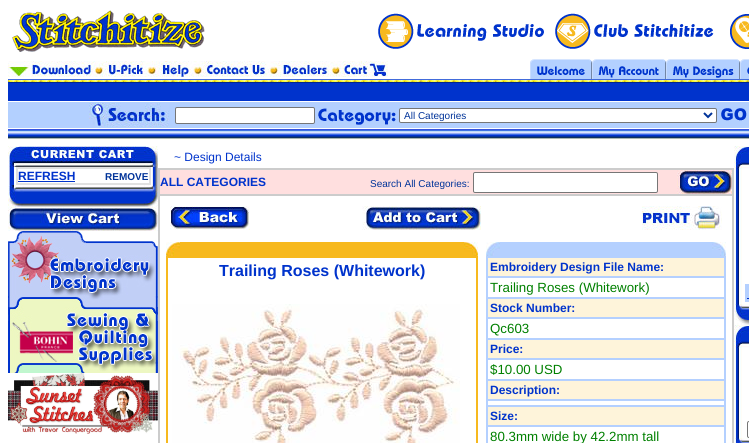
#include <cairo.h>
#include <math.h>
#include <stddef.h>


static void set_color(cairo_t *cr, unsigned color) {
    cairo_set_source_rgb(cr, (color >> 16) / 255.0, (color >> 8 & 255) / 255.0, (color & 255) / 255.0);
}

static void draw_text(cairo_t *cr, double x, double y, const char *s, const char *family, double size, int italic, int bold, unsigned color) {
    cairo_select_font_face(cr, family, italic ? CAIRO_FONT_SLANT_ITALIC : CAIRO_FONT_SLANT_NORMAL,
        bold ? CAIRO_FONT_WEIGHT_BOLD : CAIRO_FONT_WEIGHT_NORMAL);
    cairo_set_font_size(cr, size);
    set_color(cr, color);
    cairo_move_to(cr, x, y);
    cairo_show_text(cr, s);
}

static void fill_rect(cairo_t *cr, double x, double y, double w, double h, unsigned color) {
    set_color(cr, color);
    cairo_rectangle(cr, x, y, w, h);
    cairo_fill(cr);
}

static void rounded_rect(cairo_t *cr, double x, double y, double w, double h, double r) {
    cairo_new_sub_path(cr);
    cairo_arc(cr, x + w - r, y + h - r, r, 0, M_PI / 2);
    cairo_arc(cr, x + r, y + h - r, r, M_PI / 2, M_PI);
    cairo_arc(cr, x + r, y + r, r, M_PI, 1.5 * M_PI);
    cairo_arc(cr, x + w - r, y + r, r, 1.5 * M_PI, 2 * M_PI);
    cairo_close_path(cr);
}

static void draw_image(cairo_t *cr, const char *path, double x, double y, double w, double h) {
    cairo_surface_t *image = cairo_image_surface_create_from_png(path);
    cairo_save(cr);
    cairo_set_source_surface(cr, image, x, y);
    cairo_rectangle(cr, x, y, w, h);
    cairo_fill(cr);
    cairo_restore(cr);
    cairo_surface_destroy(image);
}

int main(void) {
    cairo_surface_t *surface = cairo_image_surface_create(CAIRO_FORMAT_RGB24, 749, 443);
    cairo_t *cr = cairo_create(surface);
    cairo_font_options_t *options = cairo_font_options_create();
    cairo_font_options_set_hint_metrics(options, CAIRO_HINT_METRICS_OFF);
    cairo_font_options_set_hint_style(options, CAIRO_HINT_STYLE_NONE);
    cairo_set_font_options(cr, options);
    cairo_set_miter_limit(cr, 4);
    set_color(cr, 0xFFFFFF);
    cairo_paint(cr);
    draw_image(cr, "assets/img1.png", 12, 10, 193, 42);
    draw_image(cr, "assets/img2.png", 378, 13, 166, 36);
    draw_image(cr, "assets/img3.png", 555, 13, 159, 36);
    draw_image(cr, "assets/img4.png", 730, 14, 19, 35);
    draw_image(cr, "assets/img5.png", 8, 61, 95, 16);
    draw_image(cr, "assets/img6.png", 103, 61, 53, 16);
    draw_image(cr, "assets/img7.png", 156, 61, 46, 16);
    draw_image(cr, "assets/img8.png", 202, 61, 76, 16);
    draw_image(cr, "assets/img9.png", 278, 61, 62, 16);
    draw_image(cr, "assets/img10.png", 340, 61, 48, 16);
    draw_image(cr, "assets/img11.png", 8, 79, 522, 4);
    draw_image(cr, "assets/img12.png", 530, 59, 62, 24);
    draw_image(cr, "assets/img13.png", 592, 59, 74, 24);
    draw_image(cr, "assets/img14.png", 666, 59, 74, 24);
    draw_image(cr, "assets/img15.png", 740, 59, 9, 24);
    fill_rect(cr, 8, 83, 741, 18, 0x0033CC);
    fill_rect(cr, 8, 102, 741, 26, 0xB3D0FF);
    draw_image(cr, "assets/img16.png", 89, 103, 80, 24);
    set_color(cr, 0xFFFFFF);
    rounded_rect(cr, 175.5, 107.5, 139, 16, 1.5);
    cairo_fill_preserve(cr);
    set_color(cr, 0x767676);
    cairo_set_line_width(cr, 1);
    cairo_stroke(cr);
    draw_image(cr, "assets/img17.png", 318, 108, 78, 17);
    set_color(cr, 0xFFFFFF);
    rounded_rect(cr, 399.5, 108.5, 317, 14, 1.5);
    cairo_fill_preserve(cr);
    set_color(cr, 0x767676);
    cairo_stroke(cr);
    cairo_new_path(cr);
    cairo_move_to(cr, 704, 113);
    cairo_line_to(cr, 708, 117);
    cairo_line_to(cr, 712, 113);
    set_color(cr, 0x003399);
    cairo_set_line_width(cr, 2);
    cairo_stroke(cr);
    draw_text(cr, 404, 119, "All Categories", "Liberation Sans", 10, 0, 0, 0x003399);
    draw_image(cr, "assets/img18.png", 721, 108, 26, 13);
    draw_image(cr, "assets/img19.png", 8, 129, 741, 11);
    draw_image(cr, "assets/img20.png", 8, 146, 150, 21);
    draw_image(cr, "assets/img21.png", 8, 167, 150, 18);
    cairo_rectangle(cr, 16.5, 167.5, 134, 17);
    set_color(cr, 0xE1E1E1);
    cairo_set_line_width(cr, 1);
    cairo_stroke(cr);
    cairo_rectangle(cr, 17.5, 168.5, 132, 15);
    cairo_stroke(cr);
    draw_text(cr, 18, 180, "REFRESH", "Liberation Sans", 12, 0, 1, 0x0033CC);
    fill_rect(cr, 18, 181, 57, 1, 0x0033CC);
    draw_text(cr, 105, 180, "REMOVE", "Liberation Sans", 10, 0, 1, 0x003399);
    draw_image(cr, "assets/img22.png", 8, 185, 150, 22);
    draw_image(cr, "assets/img23.png", 8, 207, 150, 24);
    draw_image(cr, "assets/img24.png", 8, 231, 150, 76);
    draw_image(cr, "assets/img25.png", 8, 307, 150, 66);
    draw_image(cr, "assets/img26.png", 8, 373, 150, 61);
    draw_text(cr, 174, 161, "~ Design Details", "Liberation Sans", 12, 0, 0, 0x0033CC);
    cairo_rectangle(cr, 158.5, 168.5, 575, 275);
    set_color(cr, 0xCCCCCC);
    cairo_stroke(cr);
    fill_rect(cr, 160, 170, 517, 24, 0xFFDFDF);
    cairo_rectangle(cr, 159.5, 169.5, 573, 25);
    set_color(cr, 0xCCCCCC);
    cairo_stroke(cr);
    draw_text(cr, 160, 186, "ALL CATEGORIES", "Liberation Sans", 12, 0, 1, 0x0033CC);
    draw_text(cr, 370, 187, "Search All Categories:", "Liberation Sans", 10, 0, 0, 0x003399);
    set_color(cr, 0xFFFFFF);
    rounded_rect(cr, 473.5, 172.5, 184, 20, 1.5);
    cairo_fill_preserve(cr);
    set_color(cr, 0x767676);
    cairo_stroke(cr);
    draw_image(cr, "assets/img27.png", 677, 170, 55, 24);
    cairo_rectangle(cr, 159.5, 195.5, 573, 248);
    set_color(cr, 0xCCCCCC);
    cairo_stroke(cr);
    draw_image(cr, "assets/img28.png", 170, 206, 80, 24);
    draw_image(cr, "assets/img29.png", 362, 206, 119, 24);
    draw_image(cr, "assets/img30.png", 642, 206, 80, 24);
    fill_rect(cr, 180, 242, 284, 14, 0xF7B91E);
    draw_image(cr, "assets/img31.png", 166, 242, 14, 14);
    draw_image(cr, "assets/img32.png", 464, 242, 14, 14);
    cairo_rectangle(cr, 166.5, 256.5, 311, 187);
    cairo_stroke(cr);
    cairo_rectangle(cr, 167.5, 257.5, 309, 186);
    cairo_stroke(cr);
    draw_text(cr, 219, 276, "Trailing Roses (Whitework)", "Liberation Sans", 16, 0, 1, 0x0033CC);
    draw_image(cr, "assets/img33.png", 172, 304, 288, 139);
    fill_rect(cr, 500, 242, 212, 14, 0xB4D0FF);
    draw_image(cr, "assets/img34.png", 486, 242, 14, 14);
    draw_image(cr, "assets/img35.png", 712, 242, 14, 14);
    cairo_rectangle(cr, 486.5, 256.5, 239, 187);
    cairo_stroke(cr);
    set_color(cr, 0xFEF4DA);
    cairo_rectangle(cr, 487.5, 257.5, 237, 19);
    cairo_fill_preserve(cr);
    set_color(cr, 0xB4D0FF);
    cairo_stroke(cr);
    draw_text(cr, 490, 271, "Embroidery Design File Name:", "Liberation Sans", 12, 0, 1, 0x0033CC);
    cairo_rectangle(cr, 487.5, 277.5, 237, 20);
    set_color(cr, 0xB4D0FF);
    cairo_stroke(cr);
    draw_text(cr, 490, 292, "Trailing Roses (Whitework)", "Liberation Sans", 13.3, 0, 0, 0x008000);
    set_color(cr, 0xFEF4DA);
    cairo_rectangle(cr, 487.5, 298.5, 237, 19);
    cairo_fill_preserve(cr);
    set_color(cr, 0xB4D0FF);
    cairo_stroke(cr);
    draw_text(cr, 490, 312, "Stock Number:", "Liberation Sans", 12, 0, 1, 0x0033CC);
    cairo_rectangle(cr, 487.5, 318.5, 237, 20);
    set_color(cr, 0xB4D0FF);
    cairo_stroke(cr);
    draw_text(cr, 490, 333, "Qc603", "Liberation Sans", 13.3, 0, 0, 0x008000);
    set_color(cr, 0xFEF4DA);
    cairo_rectangle(cr, 487.5, 339.5, 237, 19);
    cairo_fill_preserve(cr);
    set_color(cr, 0xB4D0FF);
    cairo_stroke(cr);
    draw_text(cr, 490, 353, "Price:", "Liberation Sans", 12, 0, 1, 0x0033CC);
    cairo_rectangle(cr, 487.5, 359.5, 237, 20);
    set_color(cr, 0xB4D0FF);
    cairo_stroke(cr);
    draw_text(cr, 490, 374, "$10.00 USD", "Liberation Sans", 13.3, 0, 0, 0x008000);
    set_color(cr, 0xFEF4DA);
    cairo_rectangle(cr, 487.5, 380.5, 237, 19);
    cairo_fill_preserve(cr);
    set_color(cr, 0xB4D0FF);
    cairo_stroke(cr);
    draw_text(cr, 490, 394, "Description:", "Liberation Sans", 12, 0, 1, 0x0033CC);
    cairo_rectangle(cr, 487.5, 400.5, 237, 5);
    set_color(cr, 0xB4D0FF);
    cairo_stroke(cr);
    set_color(cr, 0xFEF4DA);
    cairo_rectangle(cr, 487.5, 406.5, 237, 19);
    cairo_fill_preserve(cr);
    set_color(cr, 0xB4D0FF);
    cairo_stroke(cr);
    draw_text(cr, 490, 420, "Size:", "Liberation Sans", 12, 0, 1, 0x0033CC);
    cairo_rectangle(cr, 487.5, 426.5, 237, 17);
    set_color(cr, 0xB4D0FF);
    cairo_stroke(cr);
    draw_text(cr, 490, 441, "80.3mm wide by 42.2mm tall", "Liberation Sans", 13.3, 0, 0, 0x008000);
    draw_image(cr, "assets/img36.png", 734, 146, 15, 23);
    draw_image(cr, "assets/img37.png", 734, 169, 8, 135);
    fill_rect(cr, 745, 284, 4, 18, 0xB4D0FF);
    fill_rect(cr, 747, 298, 2, 1, 0x0033CC);
    draw_image(cr, "assets/img38.png", 734, 304, 15, 21);
    draw_image(cr, "assets/img36.png", 734, 325, 15, 23);
    draw_image(cr, "assets/img39.png", 734, 348, 8, 90);
    rounded_rect(cr, 747.5, 421.5, 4, 16, 1.5);
    set_color(cr, 0x767676);
    cairo_stroke(cr);
    draw_image(cr, "assets/img40.png", 734, 438, 15, 5);
    cairo_surface_write_to_png(surface, "output.png");
    cairo_font_options_destroy(options);
    cairo_destroy(cr);
    cairo_surface_destroy(surface);
    return 0;
}
